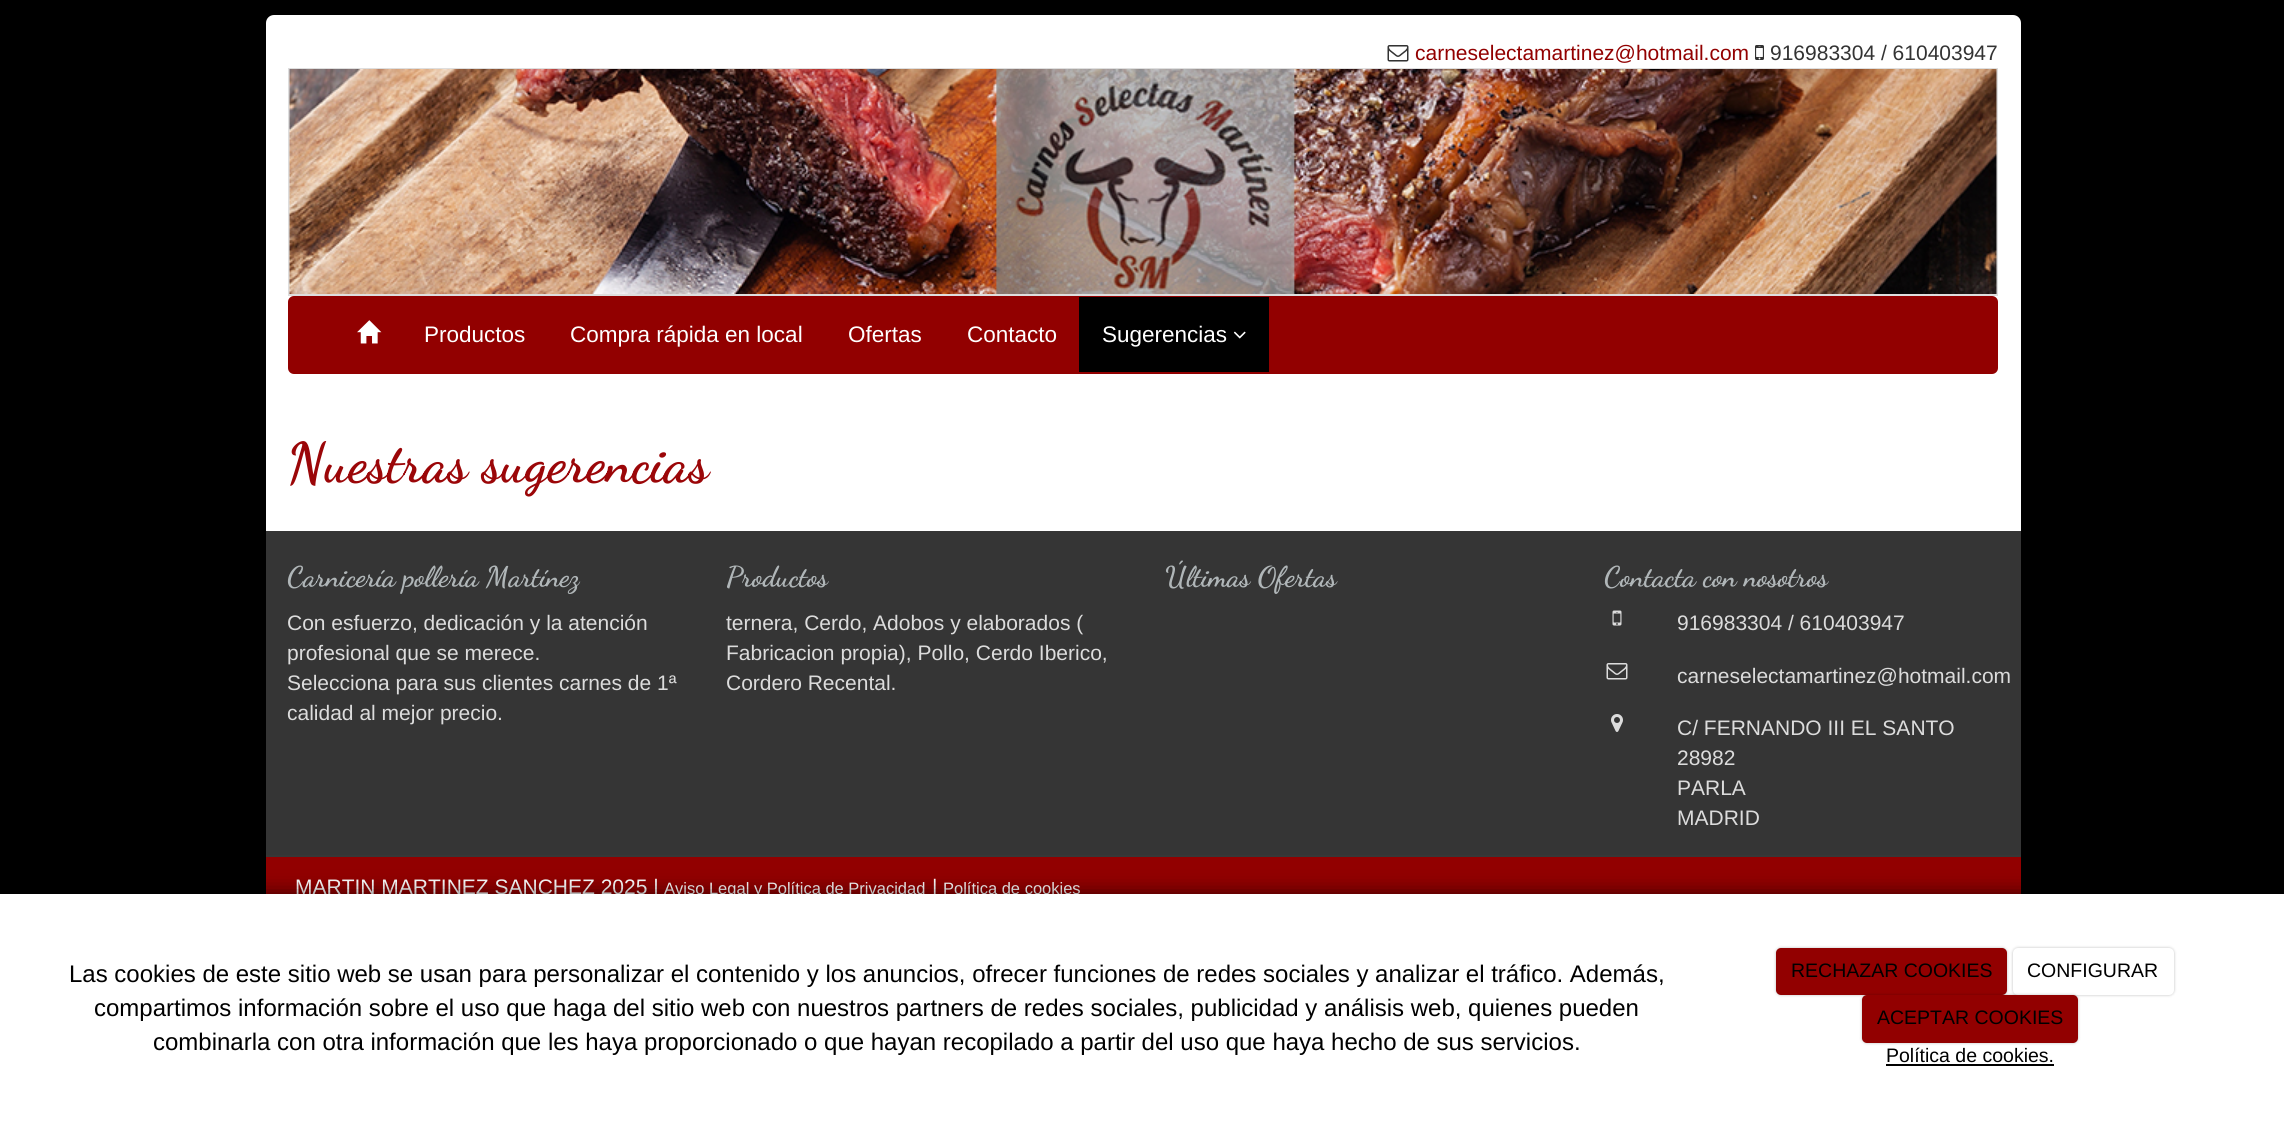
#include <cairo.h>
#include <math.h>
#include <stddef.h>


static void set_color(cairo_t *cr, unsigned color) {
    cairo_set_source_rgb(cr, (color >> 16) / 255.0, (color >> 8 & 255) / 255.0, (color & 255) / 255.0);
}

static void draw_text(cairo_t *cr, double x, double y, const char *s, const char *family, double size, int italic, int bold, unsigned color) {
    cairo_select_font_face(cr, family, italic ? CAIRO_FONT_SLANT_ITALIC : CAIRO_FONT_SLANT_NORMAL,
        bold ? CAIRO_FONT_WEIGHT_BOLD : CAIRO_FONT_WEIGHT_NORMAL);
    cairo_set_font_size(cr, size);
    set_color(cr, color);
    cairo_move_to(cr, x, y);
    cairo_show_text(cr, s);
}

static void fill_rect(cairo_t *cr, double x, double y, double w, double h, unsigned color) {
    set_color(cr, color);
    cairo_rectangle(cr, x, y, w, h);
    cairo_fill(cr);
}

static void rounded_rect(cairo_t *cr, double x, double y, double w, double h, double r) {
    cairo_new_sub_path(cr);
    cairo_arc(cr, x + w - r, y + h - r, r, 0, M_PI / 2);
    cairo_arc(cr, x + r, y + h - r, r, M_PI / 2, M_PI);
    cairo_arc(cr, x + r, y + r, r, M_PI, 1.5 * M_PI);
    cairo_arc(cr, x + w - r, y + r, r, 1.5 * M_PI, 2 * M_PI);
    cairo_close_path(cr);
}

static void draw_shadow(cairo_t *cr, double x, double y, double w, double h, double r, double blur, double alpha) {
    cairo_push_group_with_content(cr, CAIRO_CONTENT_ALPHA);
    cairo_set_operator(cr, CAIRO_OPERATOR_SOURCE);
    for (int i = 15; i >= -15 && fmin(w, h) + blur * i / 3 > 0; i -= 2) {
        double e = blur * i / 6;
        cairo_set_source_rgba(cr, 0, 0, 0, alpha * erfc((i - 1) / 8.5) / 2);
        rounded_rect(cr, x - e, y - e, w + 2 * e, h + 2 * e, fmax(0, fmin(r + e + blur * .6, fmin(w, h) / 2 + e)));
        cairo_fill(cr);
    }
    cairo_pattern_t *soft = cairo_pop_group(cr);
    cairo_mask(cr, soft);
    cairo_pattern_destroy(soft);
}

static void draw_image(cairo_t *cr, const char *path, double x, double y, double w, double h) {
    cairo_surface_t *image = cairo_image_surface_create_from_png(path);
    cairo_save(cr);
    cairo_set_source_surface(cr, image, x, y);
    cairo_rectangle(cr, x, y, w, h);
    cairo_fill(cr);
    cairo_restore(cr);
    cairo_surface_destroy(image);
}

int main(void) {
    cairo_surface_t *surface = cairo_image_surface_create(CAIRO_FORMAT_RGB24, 2284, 1123);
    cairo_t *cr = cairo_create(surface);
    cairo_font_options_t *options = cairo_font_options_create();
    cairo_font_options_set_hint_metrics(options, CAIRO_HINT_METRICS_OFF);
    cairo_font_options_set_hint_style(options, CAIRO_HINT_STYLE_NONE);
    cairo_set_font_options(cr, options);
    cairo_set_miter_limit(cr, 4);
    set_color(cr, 0x000000);
    cairo_paint(cr);
    set_color(cr, 0xFFFFFF);
    rounded_rect(cr, 266, 15, 1755, 902, 8);
    cairo_fill(cr);
    draw_image(cr, "assets/img1.png", 1387, 45, 22, 17);
    draw_text(cr, 1415, 60, "carneselectamartinez@hotmail.com", "Liberation Sans", 21, 0, 0, 0x920000);
    draw_image(cr, "assets/img2.png", 1755, 45, 9, 15);
    draw_text(cr, 1770, 60, "916983304 / 610403947", "Liberation Sans", 21, 0, 0, 0x333333);
    cairo_rectangle(cr, 289, 69, 1708, 226);
    set_color(cr, 0xDEDEDE);
    cairo_stroke(cr);
    draw_image(cr, "assets/img3.png", 289, 69, 1708, 225);
    set_color(cr, 0x920000);
    rounded_rect(cr, 289, 297, 1708, 76, 5);
    cairo_fill_preserve(cr);
    cairo_stroke(cr);
    draw_image(cr, "assets/img4.png", 357, 320, 25, 24);
    draw_text(cr, 424, 342, "Productos", "Liberation Sans", 22.5, 0, 0, 0xFFFFFF);
    draw_text(cr, 570, 342, "Compra rápida en local", "Liberation Sans", 22.5, 0, 0, 0xFFFFFF);
    draw_text(cr, 848, 342, "Ofertas", "Liberation Sans", 22.5, 0, 0, 0xFFFFFF);
    draw_text(cr, 967, 342, "Contacto", "Liberation Sans", 22.5, 0, 0, 0xFFFFFF);
    fill_rect(cr, 1079, 297, 190, 75, 0x000000);
    draw_text(cr, 1102, 342, "Sugerencias", "Liberation Sans", 22.5, 0, 0, 0xFFFFFF);
    draw_image(cr, "assets/img5.png", 1233, 331, 13, 8);
    draw_text(cr, 287, 481, "Nuestras sugerencias", "Dancing Script", 55.5, 0, 1, 0x9B0608);
    fill_rect(cr, 266, 531, 1755, 324, 0x353535);
    draw_text(cr, 287, 586, "Carnicería pollería Martínez", "Dancing Script", 28.5, 0, 1, 0xB0B6B8);
    draw_text(cr, 287, 630, "Con esfuerzo, dedicación y la atención", "Liberation Sans", 21, 0, 0, 0xDCDCDC);
    draw_text(cr, 287, 660, "profesional que se merece.", "Liberation Sans", 21, 0, 0, 0xDCDCDC);
    draw_text(cr, 287, 690, "Selecciona para sus clientes carnes de 1ª", "Liberation Sans", 21, 0, 0, 0xDCDCDC);
    draw_text(cr, 287, 720, "calidad al mejor precio.", "Liberation Sans", 21, 0, 0, 0xDCDCDC);
    draw_text(cr, 726, 586, "Productos", "Dancing Script", 28.5, 0, 1, 0xB0B6B8);
    draw_text(cr, 726, 630, "ternera, Cerdo, Adobos y elaborados (", "Liberation Sans", 21, 0, 0, 0xDCDCDC);
    draw_text(cr, 726, 660, "Fabricacion propia), Pollo, Cerdo Iberico,", "Liberation Sans", 21, 0, 0, 0xDCDCDC);
    draw_text(cr, 726, 690, "Cordero Recental.", "Liberation Sans", 21, 0, 0, 0xDCDCDC);
    draw_text(cr, 1165, 586, "Últimas Ofertas", "Dancing Script", 28.5, 0, 1, 0xB0B6B8);
    draw_text(cr, 1604, 586, "Contacta con nosotros", "Dancing Script", 28.5, 0, 1, 0xB0B6B8);
    draw_image(cr, "assets/img6.png", 1612, 610, 10, 16);
    draw_text(cr, 1677, 630, "916983304 / 610403947", "Liberation Sans", 21, 0, 0, 0xDCDCDC);
    draw_image(cr, "assets/img7.png", 1606, 663, 22, 17);
    draw_text(cr, 1677, 683, "carneselectamartinez@hotmail.com", "Liberation Sans", 21, 0, 0, 0xDCDCDC);
    draw_image(cr, "assets/img8.png", 1611, 714, 12, 18);
    draw_text(cr, 1677, 735, "C/ FERNANDO III EL SANTO", "Liberation Sans", 21, 0, 0, 0xDCDCDC);
    draw_text(cr, 1677, 765, "28982", "Liberation Sans", 21, 0, 0, 0xDCDCDC);
    draw_text(cr, 1677, 795, "PARLA", "Liberation Sans", 21, 0, 0, 0xDCDCDC);
    draw_text(cr, 1677, 825, "MADRID", "Liberation Sans", 21, 0, 0, 0xDCDCDC);
    fill_rect(cr, 266, 857, 1755, 37, 0x920000);
    fill_rect(cr, 266, 855, 1755, 2, 0x373737);
    draw_text(cr, 295, 894, "MARTIN MARTINEZ SANCHEZ 2025 |", "Liberation Sans", 21, 0, 0, 0xFFFFFF);
    draw_text(cr, 664, 894, "Aviso Legal y Política de Privacidad", "Liberation Sans", 16.5, 0, 0, 0xFFFFFF);
    draw_text(cr, 932, 894, "|", "Liberation Sans", 21, 0, 0, 0xFFFFFF);
    draw_text(cr, 943, 894, "Política de cookies", "Liberation Sans", 16.5, 0, 0, 0xFFFFFF);
    set_color(cr, 0x000000);
    draw_shadow(cr, 0, 894, 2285, 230, 0, 10, 0.6);
    fill_rect(cr, 0, 894, 2284, 229, 0xFFFFFF);
    draw_text(cr, 69, 982, "Las cookies de este sitio web se usan para personalizar el contenido y los anuncios, ofrecer funciones de redes sociales y analizar el tráfico. Además,", "Liberation Sans", 24, 0, 0, 0x000000);
    draw_text(cr, 94, 1016, "compartimos información sobre el uso que haga del sitio web con nuestros partners de redes sociales, publicidad y análisis web, quienes pueden", "Liberation Sans", 24, 0, 0, 0x000000);
    draw_text(cr, 153, 1050, "combinarla con otra información que les haya proporcionado o que hayan recopilado a partir del uso que haya hecho de sus servicios.", "Liberation Sans", 24, 0, 0, 0x000000);
    set_color(cr, 0x000000);
    draw_shadow(cr, 1776, 948, 231, 47, 5, 1.5, 0.25);
    set_color(cr, 0x920000);
    rounded_rect(cr, 1776, 948, 231, 47, 5);
    cairo_fill(cr);
    draw_text(cr, 1791, 977, "RECHAZAR COOKIES", "Liberation Sans", 19.5, 0, 0, 0x000000);
    set_color(cr, 0x000000);
    draw_shadow(cr, 2013, 948, 161, 47, 5, 1.5, 0.25);
    set_color(cr, 0xFFFFFF);
    rounded_rect(cr, 2013, 948, 161, 47, 5);
    cairo_fill(cr);
    draw_text(cr, 2027, 977, "CONFIGURAR", "Liberation Sans", 19.5, 0, 0, 0x000000);
    set_color(cr, 0x000000);
    draw_shadow(cr, 1862, 995, 216, 48, 5, 1.5, 0.25);
    set_color(cr, 0x920000);
    rounded_rect(cr, 1862, 995, 216, 48, 5);
    cairo_fill(cr);
    draw_text(cr, 1877, 1024, "ACEPTAR COOKIES", "Liberation Sans", 19.5, 0, 0, 0x000000);
    draw_text(cr, 1886, 1062, "Política de cookies.", "Liberation Sans", 19.5, 0, 0, 0x000000);
    fill_rect(cr, 1886, 1064, 168, 2, 0x000000);
    cairo_surface_write_to_png(surface, "output.png");
    cairo_font_options_destroy(options);
    cairo_destroy(cr);
    cairo_surface_destroy(surface);
    return 0;
}
